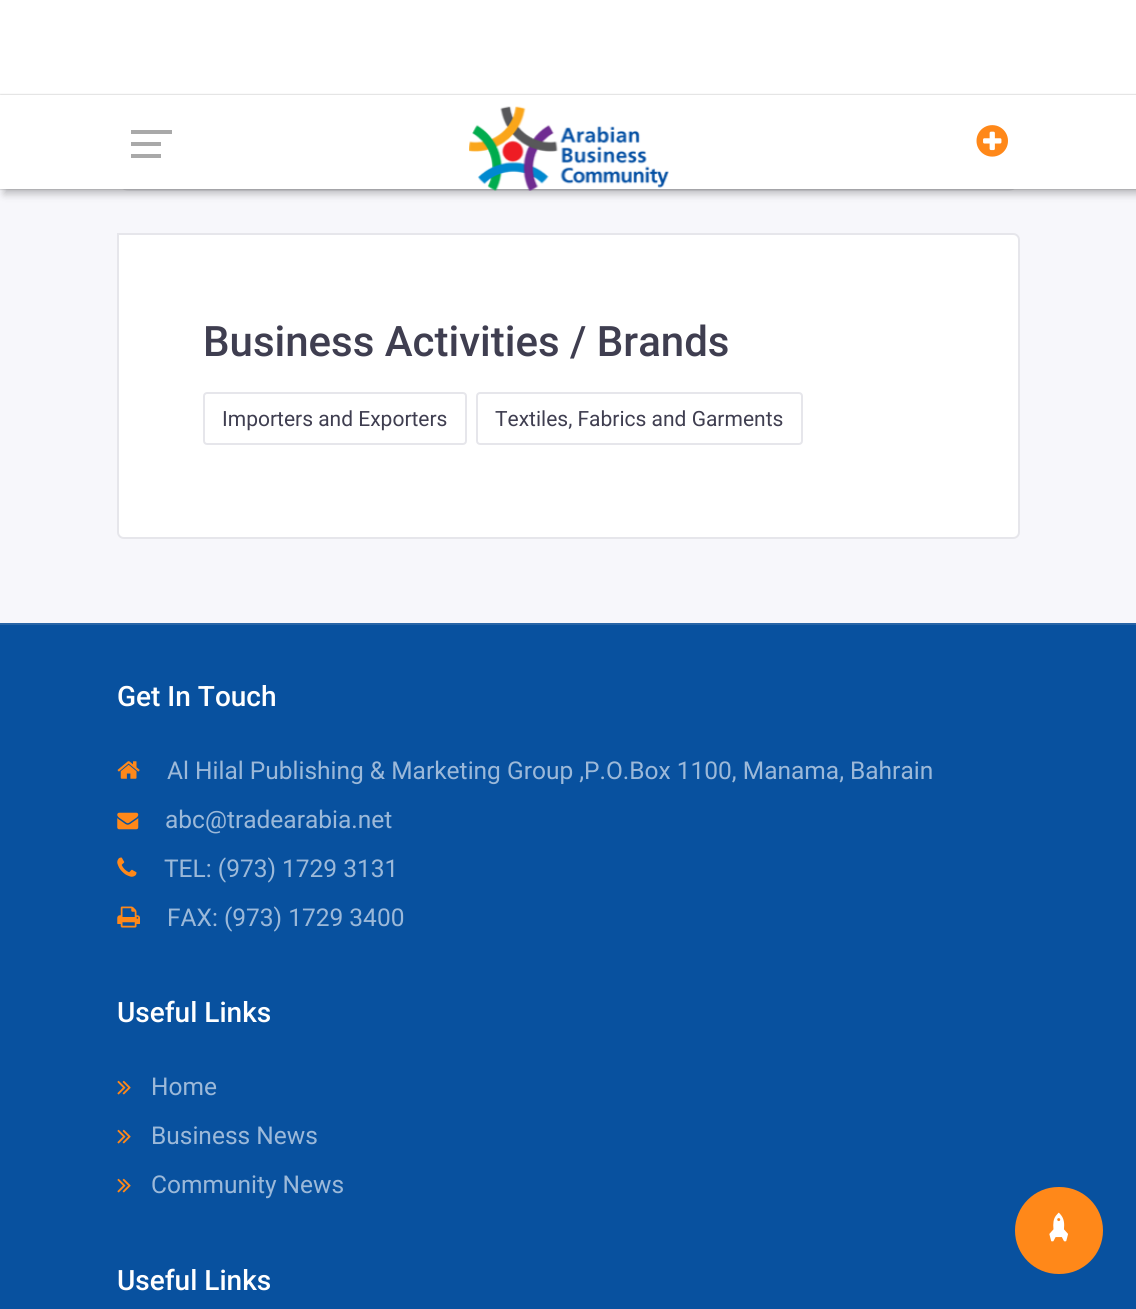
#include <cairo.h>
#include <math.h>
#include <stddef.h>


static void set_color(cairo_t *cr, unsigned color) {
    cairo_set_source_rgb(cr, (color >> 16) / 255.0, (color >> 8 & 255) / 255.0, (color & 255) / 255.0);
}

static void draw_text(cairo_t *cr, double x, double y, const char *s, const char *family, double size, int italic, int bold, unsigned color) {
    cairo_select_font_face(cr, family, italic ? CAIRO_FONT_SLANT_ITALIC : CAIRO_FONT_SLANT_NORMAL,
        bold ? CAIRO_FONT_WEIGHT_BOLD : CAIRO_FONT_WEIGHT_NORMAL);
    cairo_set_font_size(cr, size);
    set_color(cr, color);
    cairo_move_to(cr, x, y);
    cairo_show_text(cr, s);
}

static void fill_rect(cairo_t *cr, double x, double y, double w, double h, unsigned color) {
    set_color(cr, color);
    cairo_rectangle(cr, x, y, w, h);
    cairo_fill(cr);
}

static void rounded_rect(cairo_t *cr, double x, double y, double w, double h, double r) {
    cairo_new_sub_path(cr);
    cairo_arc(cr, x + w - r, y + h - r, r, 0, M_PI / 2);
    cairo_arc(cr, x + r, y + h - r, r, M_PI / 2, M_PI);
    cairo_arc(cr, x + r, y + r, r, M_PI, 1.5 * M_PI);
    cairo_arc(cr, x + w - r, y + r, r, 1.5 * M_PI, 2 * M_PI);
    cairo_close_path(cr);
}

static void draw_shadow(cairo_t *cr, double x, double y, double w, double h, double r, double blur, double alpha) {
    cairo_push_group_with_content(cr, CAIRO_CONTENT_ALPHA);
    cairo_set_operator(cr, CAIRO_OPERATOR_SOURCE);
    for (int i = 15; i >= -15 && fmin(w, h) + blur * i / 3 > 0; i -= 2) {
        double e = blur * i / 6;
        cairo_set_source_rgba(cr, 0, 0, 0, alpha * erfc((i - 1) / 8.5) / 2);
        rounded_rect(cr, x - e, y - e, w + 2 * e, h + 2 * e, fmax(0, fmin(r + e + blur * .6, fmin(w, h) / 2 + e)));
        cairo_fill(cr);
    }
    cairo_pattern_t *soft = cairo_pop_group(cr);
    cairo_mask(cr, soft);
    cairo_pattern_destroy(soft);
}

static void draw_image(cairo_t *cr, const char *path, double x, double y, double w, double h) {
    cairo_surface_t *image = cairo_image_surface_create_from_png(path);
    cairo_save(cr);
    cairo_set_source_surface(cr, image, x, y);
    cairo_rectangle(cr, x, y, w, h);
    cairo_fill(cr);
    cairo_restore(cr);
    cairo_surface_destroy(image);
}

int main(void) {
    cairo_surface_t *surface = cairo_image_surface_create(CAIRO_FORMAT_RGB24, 1136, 1309);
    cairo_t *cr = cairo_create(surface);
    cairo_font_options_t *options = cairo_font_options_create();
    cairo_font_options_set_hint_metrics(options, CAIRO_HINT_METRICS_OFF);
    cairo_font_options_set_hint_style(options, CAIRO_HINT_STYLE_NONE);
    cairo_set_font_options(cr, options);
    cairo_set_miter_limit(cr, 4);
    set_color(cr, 0xF7F7FB);
    cairo_paint(cr);
    rounded_rect(cr, 118, -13, 901, 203, 11);
    set_color(cr, 0xE6E6EB);
    cairo_stroke(cr);
    set_color(cr, 0x000000);
    draw_shadow(cr, 4, 5, 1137, 189, 0, 4, 0.24);
    fill_rect(cr, 0, 0, 1136, 95, 0xFFFFFF);
    set_color(cr, 0x000000);
    draw_shadow(cr, 0, 95, 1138, 94, 0, 1, 0.3);
    fill_rect(cr, 0, 95, 1136, 94, 0xFFFFFF);
    fill_rect(cr, 131, 142, 30, 4, 0xA9A9A9);
    fill_rect(cr, 131, 130, 41, 4, 0xA9A9A9);
    fill_rect(cr, 131, 154, 30, 4, 0xA9A9A9);
    draw_image(cr, "assets/img1.png", 469, 106, 200, 85);
    draw_image(cr, "assets/img2.png", 976, 125, 32, 32);
    set_color(cr, 0xFFFFFF);
    cairo_new_path(cr);
    cairo_move_to(cr, 118, 234);
    cairo_line_to(cr, 1013, 234);
    cairo_curve_to(cr, 1016.5, 234, 1019, 236.5, 1019, 240);
    cairo_line_to(cr, 1019, 532);
    cairo_curve_to(cr, 1019, 535.5, 1016.5, 538, 1013, 538);
    cairo_line_to(cr, 124, 538);
    cairo_curve_to(cr, 120.5, 538, 118, 535.5, 118, 532);
    cairo_close_path(cr);
    cairo_fill_preserve(cr);
    set_color(cr, 0xE6E6EB);
    cairo_stroke(cr);
    draw_text(cr, 203, 356, "Business Activities / Brands", "Roboto Medium", 42, 0, 0, 0x3F3E50);
    rounded_rect(cr, 204, 393, 262, 51, 3);
    set_color(cr, 0xE6E6EB);
    cairo_stroke(cr);
    draw_text(cr, 222, 426, "Importers and Exporters", "Roboto", 21, 0, 0, 0x3F3E50);
    rounded_rect(cr, 477, 393, 325, 51, 3);
    set_color(cr, 0xE6E6EB);
    cairo_stroke(cr);
    draw_text(cr, 495, 426, "Textiles, Fabrics and Garments", "Roboto", 21, 0, 0, 0x3F3E50);
    fill_rect(cr, 0, 625, 1136, 684, 0x08519F);
    fill_rect(cr, 0, 623, 1136, 2, 0x2865A7);
    draw_text(cr, 117, 706, "Get In Touch", "Roboto Medium", 28, 0, 0, 0xFFFFFF);
    draw_image(cr, "assets/img3.png", 117, 761, 23, 18);
    draw_text(cr, 167, 779, "Al Hilal Publishing & Marketing Group ,P.O.Box 1100, Manama, Bahrain", "Roboto", 24.5, 0, 0, 0x9CB9D9);
    draw_image(cr, "assets/img4.png", 117, 812, 22, 18);
    draw_text(cr, 165, 828, "abc@tradearabia.net", "Roboto", 24.5, 0, 0, 0x9CB9D9);
    draw_image(cr, "assets/img5.png", 117, 857, 20, 20);
    draw_text(cr, 164, 877, "TEL: (973) 1729 3131", "Roboto", 24.5, 0, 0, 0x9CB9D9);
    draw_image(cr, "assets/img6.png", 117, 906, 23, 22);
    draw_text(cr, 167, 926, "FAX: (973) 1729 3400", "Roboto", 24.5, 0, 0, 0x9CB9D9);
    draw_text(cr, 117, 1022, "Useful Links", "Roboto Medium", 28, 0, 0, 0xFFFFFF);
    draw_image(cr, "assets/img7.png", 117, 1080, 14, 15);
    draw_text(cr, 151, 1095, "Home", "Roboto", 24.5, 0, 0, 0x9CB9D9);
    draw_image(cr, "assets/img7.png", 117, 1129, 14, 15);
    draw_text(cr, 151, 1144, "Business News", "Roboto", 24.5, 0, 0, 0x9CB9D9);
    draw_image(cr, "assets/img7.png", 117, 1178, 14, 15);
    draw_text(cr, 151, 1193, "Community News", "Roboto", 24.5, 0, 0, 0x9CB9D9);
    draw_text(cr, 117, 1290, "Useful Links", "Roboto Medium", 28, 0, 0, 0xFFFFFF);
    set_color(cr, 0xFF8819);
    rounded_rect(cr, 1015, 1187, 88, 87, 43.5);
    cairo_fill(cr);
    draw_image(cr, "assets/img8.png", 1049, 1212, 19, 30);
    cairo_surface_write_to_png(surface, "output.png");
    cairo_font_options_destroy(options);
    cairo_destroy(cr);
    cairo_surface_destroy(surface);
    return 0;
}
